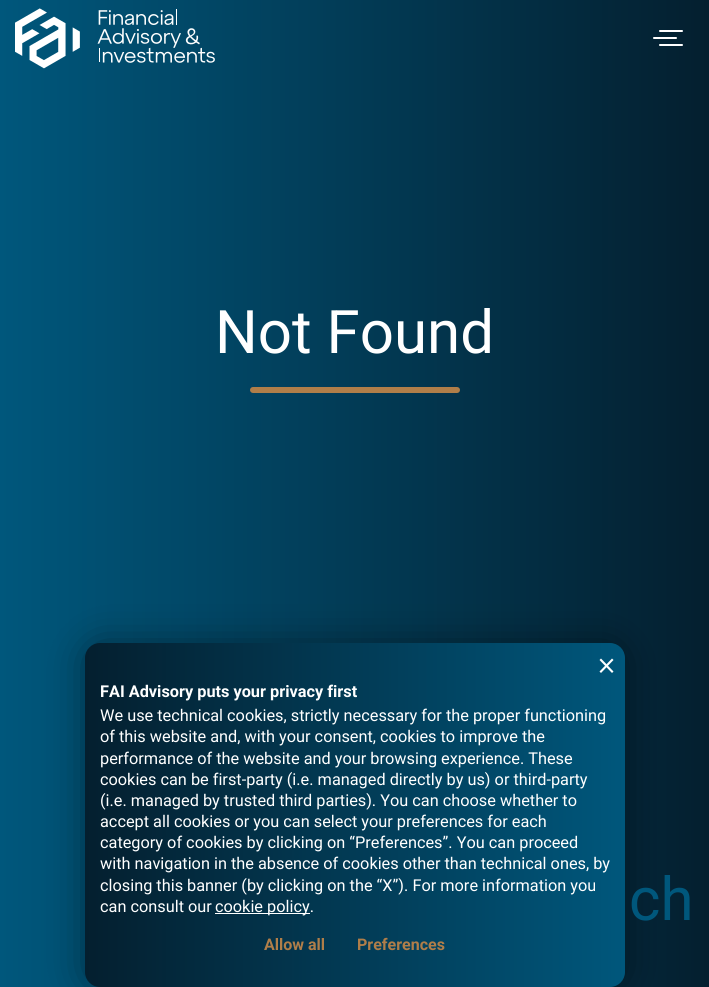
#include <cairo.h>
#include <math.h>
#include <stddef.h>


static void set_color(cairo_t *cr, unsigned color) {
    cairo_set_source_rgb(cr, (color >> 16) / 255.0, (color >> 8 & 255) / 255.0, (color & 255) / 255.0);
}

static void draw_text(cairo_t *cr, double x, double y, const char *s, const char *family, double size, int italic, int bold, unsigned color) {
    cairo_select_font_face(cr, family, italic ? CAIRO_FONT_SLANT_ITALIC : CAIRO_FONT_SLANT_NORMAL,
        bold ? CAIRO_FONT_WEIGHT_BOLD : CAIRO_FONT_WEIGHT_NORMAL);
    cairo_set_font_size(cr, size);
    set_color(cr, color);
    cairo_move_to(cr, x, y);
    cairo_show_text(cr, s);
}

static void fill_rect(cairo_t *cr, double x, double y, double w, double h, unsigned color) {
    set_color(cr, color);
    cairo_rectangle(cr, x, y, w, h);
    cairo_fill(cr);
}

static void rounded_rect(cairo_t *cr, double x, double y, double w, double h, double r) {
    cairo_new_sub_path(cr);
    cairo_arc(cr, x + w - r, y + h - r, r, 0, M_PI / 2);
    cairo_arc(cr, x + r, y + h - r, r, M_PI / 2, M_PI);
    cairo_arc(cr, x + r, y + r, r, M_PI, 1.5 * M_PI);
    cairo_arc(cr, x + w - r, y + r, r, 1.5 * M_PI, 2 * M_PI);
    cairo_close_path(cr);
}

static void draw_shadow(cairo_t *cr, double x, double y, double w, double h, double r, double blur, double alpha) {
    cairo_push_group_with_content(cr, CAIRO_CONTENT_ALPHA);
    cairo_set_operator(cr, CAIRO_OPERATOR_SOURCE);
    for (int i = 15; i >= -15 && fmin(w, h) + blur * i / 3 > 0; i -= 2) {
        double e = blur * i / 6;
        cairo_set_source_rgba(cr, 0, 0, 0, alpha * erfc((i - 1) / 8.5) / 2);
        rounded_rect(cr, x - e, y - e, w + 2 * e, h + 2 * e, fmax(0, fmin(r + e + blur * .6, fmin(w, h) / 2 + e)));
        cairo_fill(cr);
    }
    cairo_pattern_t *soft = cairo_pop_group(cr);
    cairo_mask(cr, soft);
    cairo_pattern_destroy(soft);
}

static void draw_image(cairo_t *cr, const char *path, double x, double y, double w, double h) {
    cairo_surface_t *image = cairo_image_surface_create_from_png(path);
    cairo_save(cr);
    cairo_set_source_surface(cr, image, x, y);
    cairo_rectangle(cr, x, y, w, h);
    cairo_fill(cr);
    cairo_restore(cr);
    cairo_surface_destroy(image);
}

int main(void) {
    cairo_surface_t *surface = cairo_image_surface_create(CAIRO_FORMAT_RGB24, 709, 987);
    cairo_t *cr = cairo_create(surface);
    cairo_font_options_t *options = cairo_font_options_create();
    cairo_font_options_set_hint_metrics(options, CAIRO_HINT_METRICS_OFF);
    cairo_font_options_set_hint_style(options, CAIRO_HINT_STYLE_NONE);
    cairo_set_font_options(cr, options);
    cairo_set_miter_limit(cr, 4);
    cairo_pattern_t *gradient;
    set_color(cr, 0xFFFFFF);
    cairo_paint(cr);
    gradient = cairo_pattern_create_linear(0, 346, 709, 346);
    cairo_pattern_add_color_stop_rgba(gradient, 0, 0, 0.341, 0.486, 1);
    cairo_pattern_add_color_stop_rgba(gradient, 1, 0.016, 0.122, 0.184, 1);
    cairo_set_source(cr, gradient);
    cairo_pattern_destroy(gradient);
    cairo_rectangle(cr, 0, 0, 709, 691);
    cairo_fill(cr);
    draw_image(cr, "assets/img1.png", 15, 8, 200, 61);
    set_color(cr, 0xFFFFFF);
    rounded_rect(cr, 659, 30, 24, 2, 1);
    cairo_fill(cr);
    rounded_rect(cr, 653, 37, 24, 2, 1);
    cairo_fill(cr);
    rounded_rect(cr, 659, 44, 24, 2, 1);
    cairo_fill(cr);
    draw_text(cr, 215, 353, "Not Found", "Roboto", 60, 0, 0, 0xFFFFFF);
    set_color(cr, 0xB07E49);
    rounded_rect(cr, 250, 387, 210, 6, 3);
    cairo_fill(cr);
    gradient = cairo_pattern_create_linear(0, 741, 709, 741);
    cairo_pattern_add_color_stop_rgba(gradient, 0, 0, 0.341, 0.486, 1);
    cairo_pattern_add_color_stop_rgba(gradient, 1, 0.016, 0.122, 0.184, 1);
    cairo_set_source(cr, gradient);
    cairo_pattern_destroy(gradient);
    cairo_rectangle(cr, 0, 691, 709, 99);
    cairo_fill(cr);
    gradient = cairo_pattern_create_linear(0, 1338, 709, 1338);
    cairo_pattern_add_color_stop_rgba(gradient, 0, 0, 0.341, 0.486, 1);
    cairo_pattern_add_color_stop_rgba(gradient, 1, 0.016, 0.122, 0.184, 1);
    cairo_set_source(cr, gradient);
    cairo_pattern_destroy(gradient);
    cairo_rectangle(cr, 0, 790, 709, 197);
    cairo_fill(cr);
    set_color(cr, 0x000000);
    draw_shadow(cr, 90, 648, 530, 334, 10, 20, 0.5);
    gradient = cairo_pattern_create_linear(625, 815, 85, 815);
    cairo_pattern_add_color_stop_rgba(gradient, 0, 0, 0.341, 0.486, 1);
    cairo_pattern_add_color_stop_rgba(gradient, 1, 0.016, 0.122, 0.184, 1);
    cairo_set_source(cr, gradient);
    cairo_pattern_destroy(gradient);
    rounded_rect(cr, 85, 643, 540, 344, 15);
    cairo_fill(cr);
    draw_text(cr, 100, 697, "FAI Advisory puts your privacy first", "Roboto", 16.3, 0, 1, 0xFFFFFF);
    draw_text(cr, 100, 721, "We use technical cookies, strictly necessary for the proper functioning", "Roboto", 16.3, 0, 0, 0xFFFFFF);
    draw_text(cr, 100, 742, "of this website and, with your consent, cookies to improve the", "Roboto", 16.3, 0, 0, 0xFFFFFF);
    draw_text(cr, 100, 764, "performance of the website and your browsing experience. These", "Roboto", 16.3, 0, 0, 0xFFFFFF);
    draw_text(cr, 100, 785, "cookies can be first-party (i.e. managed directly by us) or third-party", "Roboto", 16.3, 0, 0, 0xFFFFFF);
    draw_text(cr, 100, 806, "(i.e. managed by trusted third parties). You can choose whether to", "Roboto", 16.3, 0, 0, 0xFFFFFF);
    draw_text(cr, 100, 827, "accept all cookies or you can select your preferences for each", "Roboto", 16.3, 0, 0, 0xFFFFFF);
    draw_text(cr, 100, 848, "category of cookies by clicking on “Preferences”. You can proceed", "Roboto", 16.3, 0, 0, 0xFFFFFF);
    draw_text(cr, 100, 869, "with navigation in the absence of cookies other than technical ones, by", "Roboto", 16.3, 0, 0, 0xFFFFFF);
    draw_text(cr, 100, 891, "closing this banner (by clicking on the “X”). For more information you", "Roboto", 16.3, 0, 0, 0xFFFFFF);
    draw_text(cr, 100, 912, "can consult our", "Roboto", 16.3, 0, 0, 0xFFFFFF);
    fill_rect(cr, 215, 913, 95, 1, 0xFFFFFF);
    draw_text(cr, 215, 912, "cookie policy.", "Roboto", 16.3, 0, 0, 0xFFFFFF);
    cairo_new_path(cr);
    cairo_move_to(cr, 601, 658.5);
    cairo_line_to(cr, 613.5, 671.5);
    cairo_line_to(cr, 612, 673);
    cairo_line_to(cr, 599.5, 660);
    cairo_close_path(cr);
    cairo_fill(cr);
    cairo_new_path(cr);
    cairo_move_to(cr, 599.5, 671.5);
    cairo_line_to(cr, 612, 658.5);
    cairo_line_to(cr, 613.5, 660);
    cairo_line_to(cr, 601, 673);
    cairo_close_path(cr);
    cairo_fill(cr);
    draw_text(cr, 264, 950, "Allow all", "Roboto", 16, 0, 1, 0xB07E49);
    draw_text(cr, 357, 950, "Preferences", "Roboto", 16, 0, 1, 0xB07E49);
    draw_text(cr, 629, 920, "ch", "Roboto", 60, 0, 0, 0x00577C);
    cairo_surface_write_to_png(surface, "output.png");
    cairo_font_options_destroy(options);
    cairo_destroy(cr);
    cairo_surface_destroy(surface);
    return 0;
}
